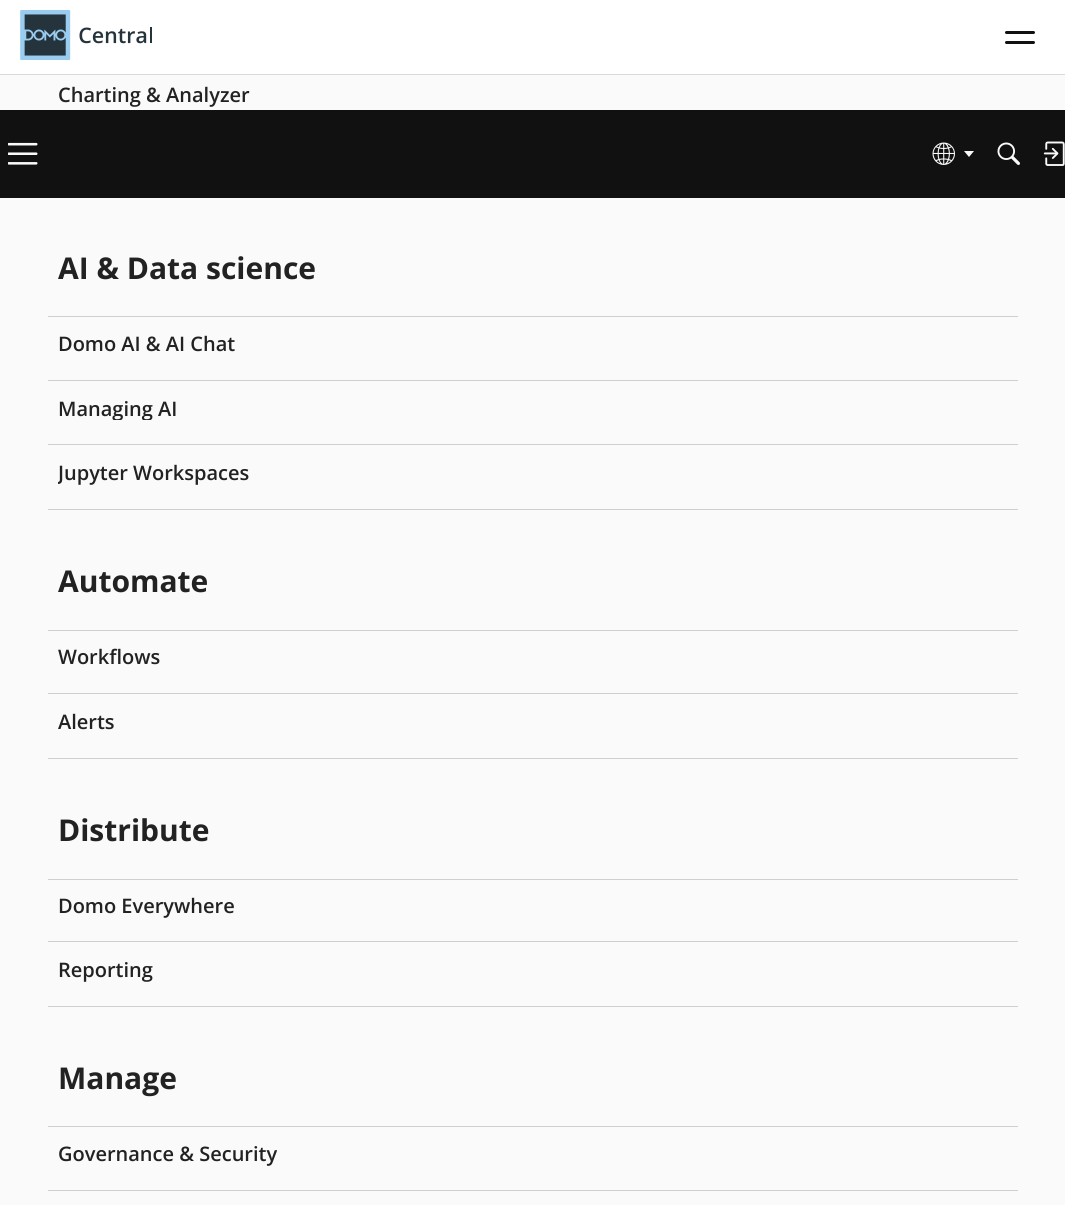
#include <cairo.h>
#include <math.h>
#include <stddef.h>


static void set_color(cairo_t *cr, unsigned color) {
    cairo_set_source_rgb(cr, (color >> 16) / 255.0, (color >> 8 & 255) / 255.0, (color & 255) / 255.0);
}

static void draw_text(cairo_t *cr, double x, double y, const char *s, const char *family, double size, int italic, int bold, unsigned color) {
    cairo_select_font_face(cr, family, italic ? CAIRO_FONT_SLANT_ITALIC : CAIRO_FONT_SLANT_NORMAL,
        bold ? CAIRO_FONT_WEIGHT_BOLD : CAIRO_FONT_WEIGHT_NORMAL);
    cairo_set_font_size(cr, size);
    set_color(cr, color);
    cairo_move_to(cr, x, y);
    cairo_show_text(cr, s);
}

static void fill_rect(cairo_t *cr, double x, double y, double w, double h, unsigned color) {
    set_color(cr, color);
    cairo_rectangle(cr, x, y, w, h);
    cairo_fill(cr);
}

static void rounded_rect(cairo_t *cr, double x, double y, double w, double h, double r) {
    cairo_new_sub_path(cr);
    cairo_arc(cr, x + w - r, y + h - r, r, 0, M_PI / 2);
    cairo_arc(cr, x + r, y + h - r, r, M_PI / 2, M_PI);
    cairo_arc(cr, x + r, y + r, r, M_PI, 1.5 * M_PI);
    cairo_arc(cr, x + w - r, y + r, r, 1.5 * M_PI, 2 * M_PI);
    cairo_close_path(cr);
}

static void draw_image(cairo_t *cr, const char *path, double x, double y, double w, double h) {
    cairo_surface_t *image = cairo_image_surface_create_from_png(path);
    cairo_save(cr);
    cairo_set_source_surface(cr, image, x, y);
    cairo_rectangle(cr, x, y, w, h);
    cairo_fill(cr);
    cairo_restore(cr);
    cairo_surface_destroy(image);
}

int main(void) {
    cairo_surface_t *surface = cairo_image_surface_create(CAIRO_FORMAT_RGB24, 1065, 1205);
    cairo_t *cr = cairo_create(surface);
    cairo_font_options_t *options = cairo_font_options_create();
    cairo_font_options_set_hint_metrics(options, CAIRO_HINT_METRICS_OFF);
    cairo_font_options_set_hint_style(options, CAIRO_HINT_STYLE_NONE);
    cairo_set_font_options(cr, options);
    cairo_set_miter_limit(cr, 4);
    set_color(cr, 0xFAFAFA);
    cairo_paint(cr);
    fill_rect(cr, 0, 0, 1065, 74, 0xFFFFFF);
    fill_rect(cr, 0, 74, 1065, 1, 0xD9D9D9);
    draw_image(cr, "assets/img1.png", 20, 10, 132, 50);
    set_color(cr, 0x111111);
    rounded_rect(cr, 1005, 31, 30, 3, 1.5);
    cairo_fill(cr);
    rounded_rect(cr, 1005, 41, 30, 3, 1.5);
    cairo_fill(cr);
    draw_text(cr, 58, 102, "Charting & Analyzer", "Open Sans SemiBold", 20, 0, 0, 0x222222);
    draw_text(cr, 58, 279, "AI & Data science", "Open Sans", 30, 0, 1, 0x222222);
    fill_rect(cr, 48, 316, 970, 1, 0xCFCFCF);
    draw_text(cr, 58, 351, "Domo AI & AI Chat", "Open Sans SemiBold", 20, 0, 0, 0x222222);
    fill_rect(cr, 48, 380, 970, 1, 0xCFCFCF);
    cairo_save(cr);
    cairo_rectangle(cr, 58, 395, 950, 25);
    cairo_clip(cr);
    draw_text(cr, 58, 416, "Managing AI", "Open Sans SemiBold", 20, 0, 0, 0x222222);
    cairo_restore(cr);
    fill_rect(cr, 48, 444, 970, 1, 0xCFCFCF);
    cairo_save(cr);
    cairo_rectangle(cr, 58, 460, 950, 25);
    cairo_clip(cr);
    draw_text(cr, 58, 480, "Jupyter Workspaces", "Open Sans SemiBold", 20, 0, 0, 0x222222);
    cairo_restore(cr);
    fill_rect(cr, 48, 509, 970, 1, 0xCFCFCF);
    draw_text(cr, 58, 592, "Automate", "Open Sans", 30, 0, 1, 0x222222);
    fill_rect(cr, 48, 630, 970, 1, 0xCFCFCF);
    draw_text(cr, 58, 664, "Workflows", "Open Sans SemiBold", 20, 0, 0, 0x222222);
    fill_rect(cr, 48, 693, 970, 1, 0xCFCFCF);
    draw_text(cr, 58, 729, "Alerts", "Open Sans SemiBold", 20, 0, 0, 0x222222);
    fill_rect(cr, 48, 758, 970, 1, 0xCFCFCF);
    draw_text(cr, 58, 841, "Distribute", "Open Sans", 30, 0, 1, 0x222222);
    fill_rect(cr, 48, 879, 970, 1, 0xCFCFCF);
    draw_text(cr, 58, 913, "Domo Everywhere", "Open Sans SemiBold", 20, 0, 0, 0x222222);
    fill_rect(cr, 48, 941, 970, 1, 0xCFCFCF);
    draw_text(cr, 58, 977, "Reporting", "Open Sans SemiBold", 20, 0, 0, 0x222222);
    fill_rect(cr, 48, 1006, 970, 1, 0xCFCFCF);
    draw_text(cr, 58, 1089, "Manage", "Open Sans", 30, 0, 1, 0x222222);
    fill_rect(cr, 48, 1126, 970, 1, 0xCFCFCF);
    draw_text(cr, 58, 1161, "Governance & Security", "Open Sans SemiBold", 20, 0, 0, 0x222222);
    fill_rect(cr, 48, 1190, 970, 1, 0xCFCFCF);
    fill_rect(cr, 0, 110, 1065, 88, 0x111111);
    draw_image(cr, "assets/img2.png", 8, 142, 30, 23);
    draw_image(cr, "assets/img3.png", 932, 142, 23, 23);
    set_color(cr, 0xFAFAFA);
    cairo_new_path(cr);
    cairo_move_to(cr, 964, 151);
    cairo_line_to(cr, 974, 151);
    cairo_line_to(cr, 969, 157);
    cairo_close_path(cr);
    cairo_fill(cr);
    draw_image(cr, "assets/img4.png", 997, 142, 23, 23);
    draw_image(cr, "assets/img5.png", 1043, 141, 22, 25);
    cairo_surface_write_to_png(surface, "output.png");
    cairo_font_options_destroy(options);
    cairo_destroy(cr);
    cairo_surface_destroy(surface);
    return 0;
}
